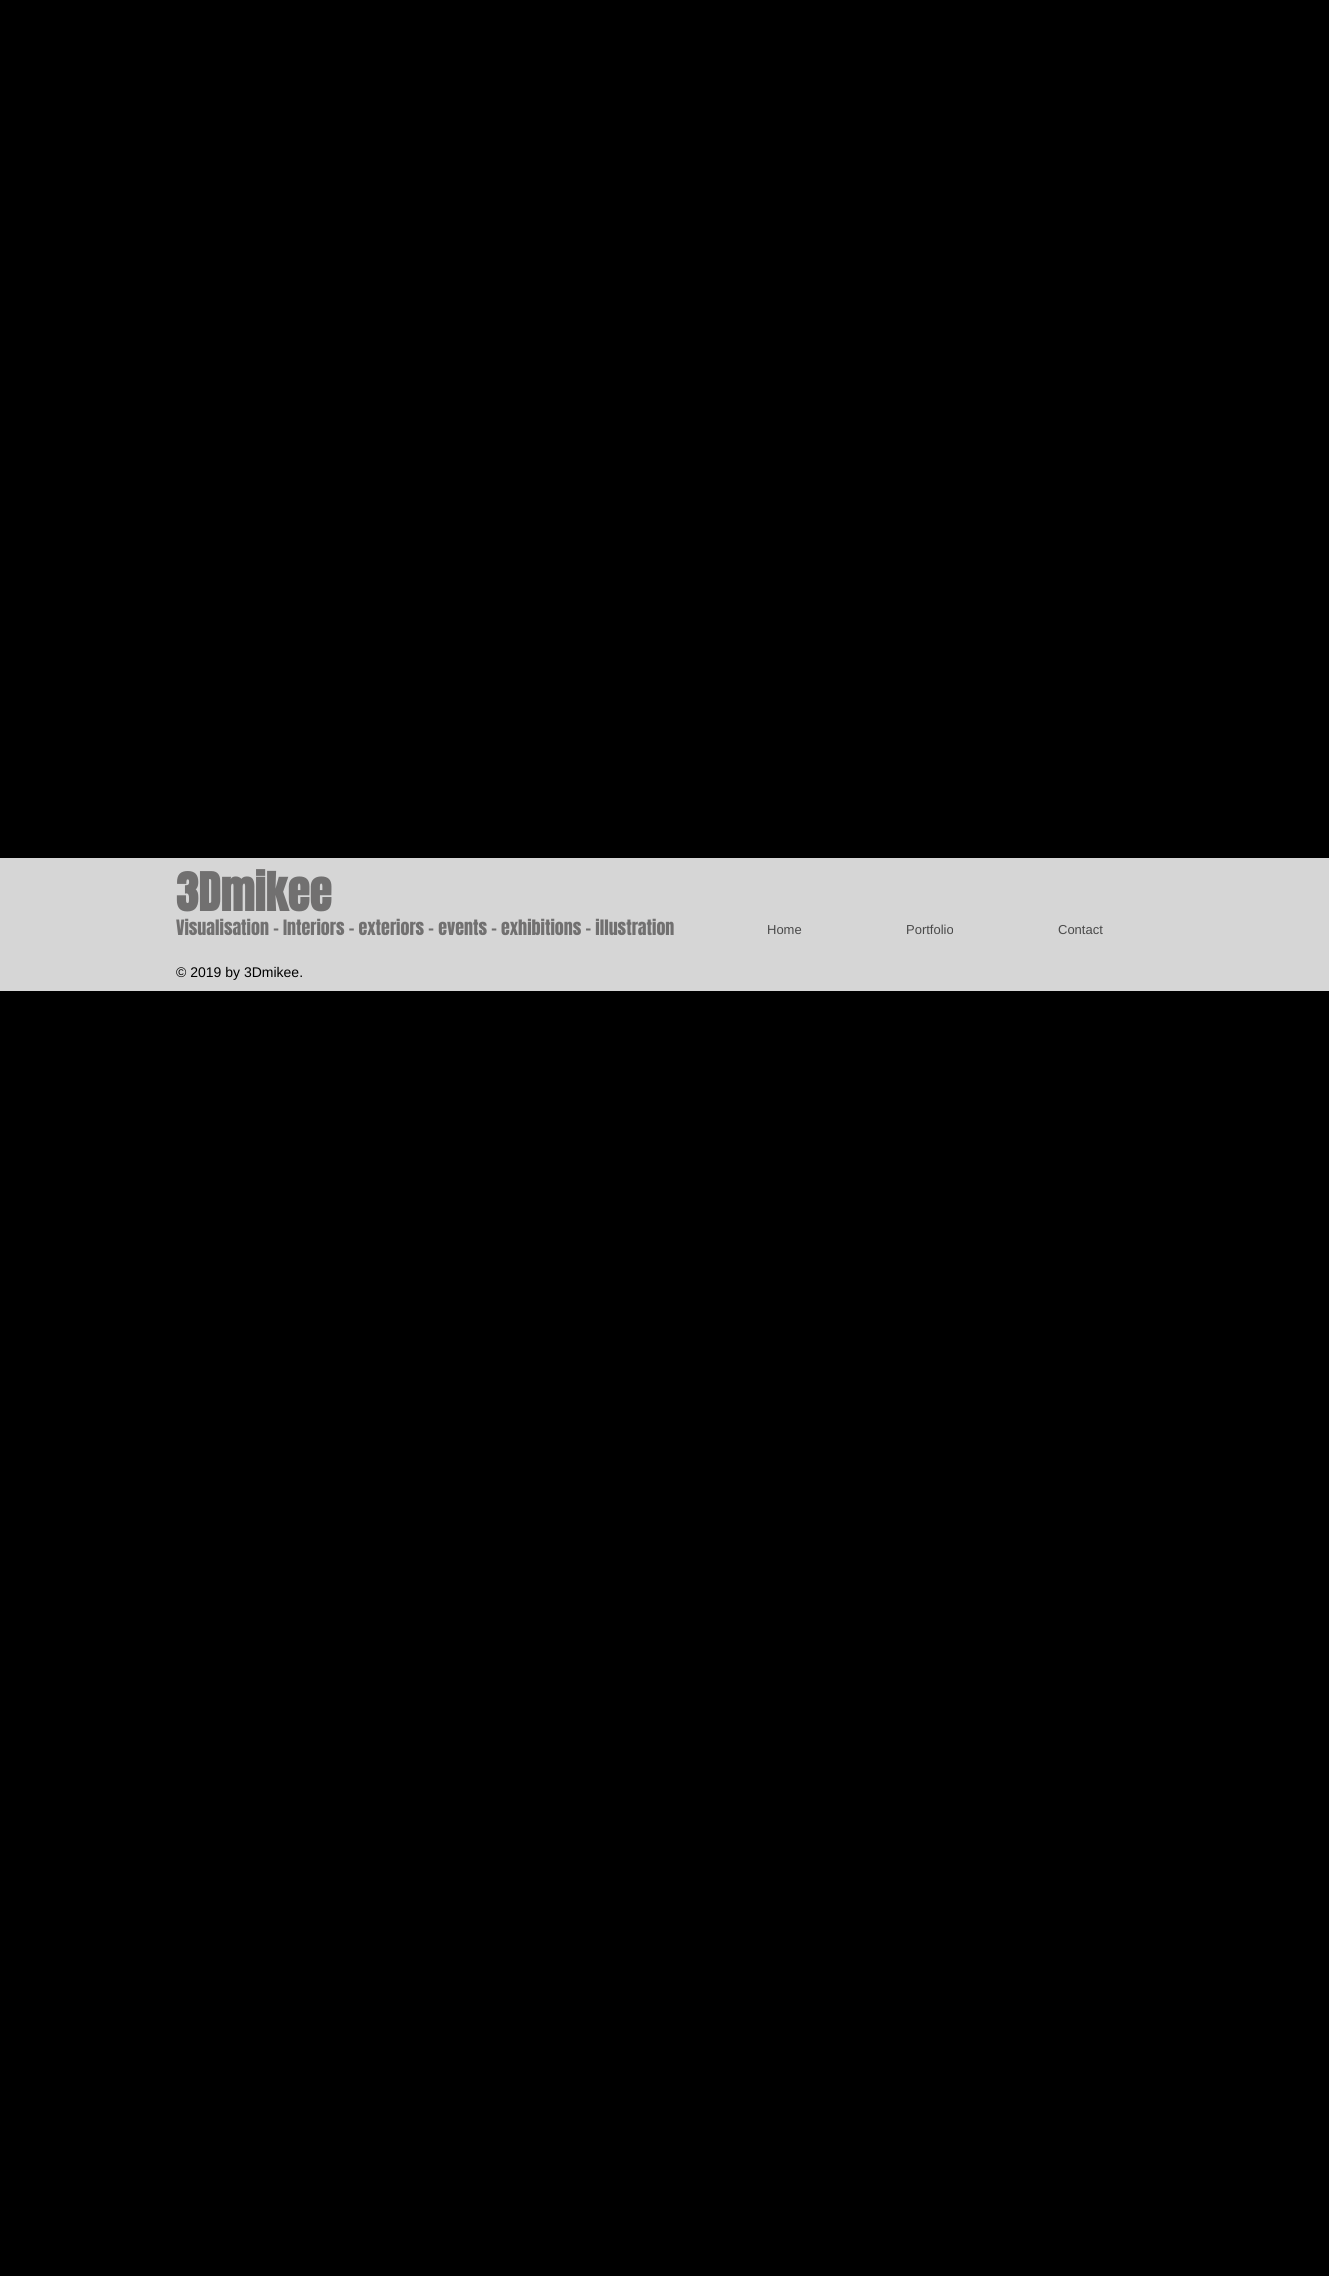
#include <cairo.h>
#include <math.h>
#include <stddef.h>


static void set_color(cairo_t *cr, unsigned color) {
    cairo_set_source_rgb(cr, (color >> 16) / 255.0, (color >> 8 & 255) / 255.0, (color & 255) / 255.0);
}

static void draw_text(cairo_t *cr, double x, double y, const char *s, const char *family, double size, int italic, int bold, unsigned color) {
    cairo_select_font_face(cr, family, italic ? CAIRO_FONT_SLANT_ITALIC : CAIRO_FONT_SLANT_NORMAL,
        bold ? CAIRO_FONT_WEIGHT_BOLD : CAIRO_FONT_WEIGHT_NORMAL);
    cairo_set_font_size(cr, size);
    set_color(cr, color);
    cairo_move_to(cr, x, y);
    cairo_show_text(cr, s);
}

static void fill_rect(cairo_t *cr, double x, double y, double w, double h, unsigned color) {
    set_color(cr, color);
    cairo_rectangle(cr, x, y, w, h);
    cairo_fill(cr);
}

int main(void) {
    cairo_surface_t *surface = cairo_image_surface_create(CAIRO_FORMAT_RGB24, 1329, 2276);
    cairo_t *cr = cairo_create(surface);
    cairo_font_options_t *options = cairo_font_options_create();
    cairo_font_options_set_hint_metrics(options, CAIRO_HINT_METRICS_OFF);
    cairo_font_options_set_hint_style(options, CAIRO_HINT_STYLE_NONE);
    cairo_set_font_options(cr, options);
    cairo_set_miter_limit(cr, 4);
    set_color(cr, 0x000000);
    cairo_paint(cr);
    fill_rect(cr, 0, 858, 1329, 133, 0xD6D6D6);
    draw_text(cr, 176, 911, "3Dmikee", "Anton", 45, 0, 1, 0x717070);
    draw_text(cr, 176, 935, "Visualisation - Interiors - exteriors - events - exhibitions - illustration", "Anton", 18, 0, 0, 0x717070);
    draw_text(cr, 767, 934, "Home", "Liberation Sans", 13, 0, 0, 0x4A4A4A);
    draw_text(cr, 906, 934, "Portfolio", "Liberation Sans", 13, 0, 0, 0x4A4A4A);
    draw_text(cr, 1058, 934, "Contact", "Liberation Sans", 13, 0, 0, 0x4A4A4A);
    draw_text(cr, 176, 977, "© 2019 by 3Dmikee.", "Liberation Sans", 14, 0, 0, 0x000000);
    cairo_surface_write_to_png(surface, "output.png");
    cairo_font_options_destroy(options);
    cairo_destroy(cr);
    cairo_surface_destroy(surface);
    return 0;
}
